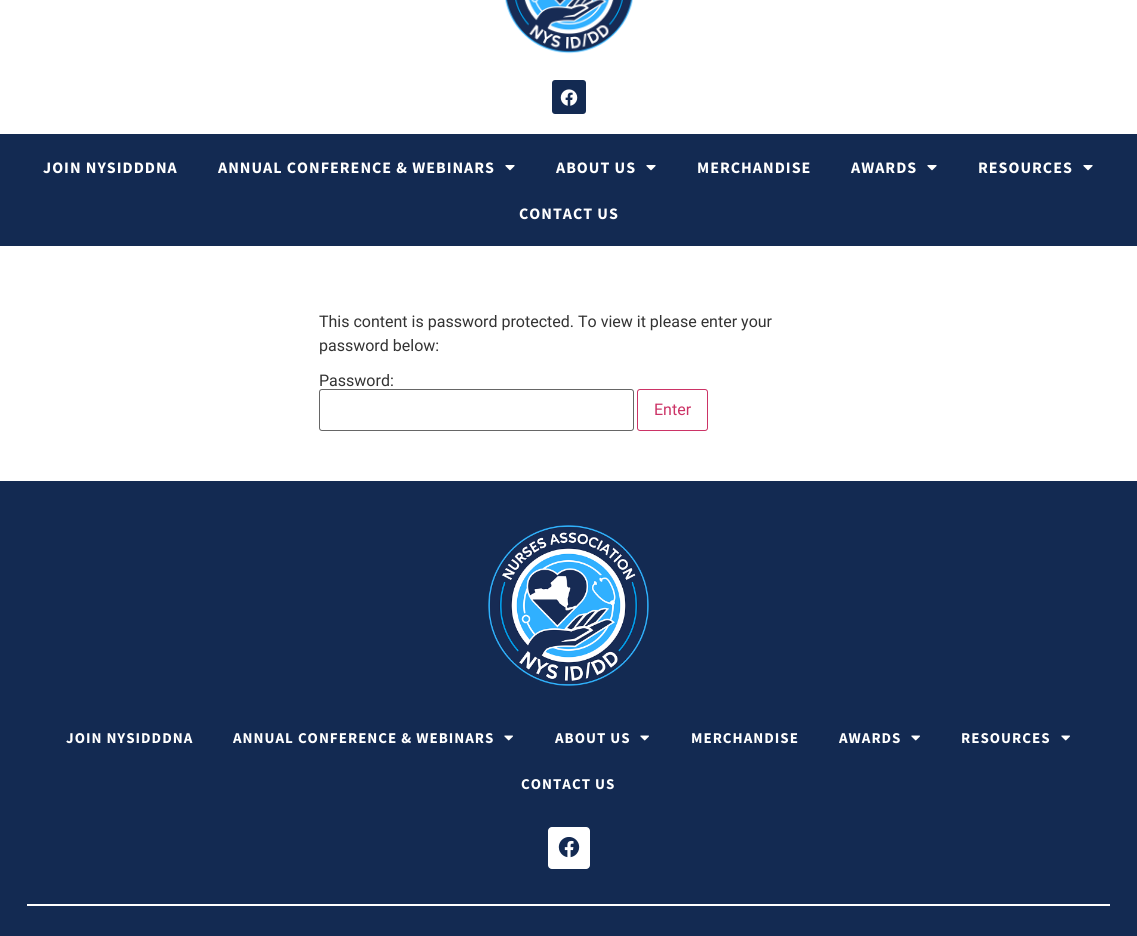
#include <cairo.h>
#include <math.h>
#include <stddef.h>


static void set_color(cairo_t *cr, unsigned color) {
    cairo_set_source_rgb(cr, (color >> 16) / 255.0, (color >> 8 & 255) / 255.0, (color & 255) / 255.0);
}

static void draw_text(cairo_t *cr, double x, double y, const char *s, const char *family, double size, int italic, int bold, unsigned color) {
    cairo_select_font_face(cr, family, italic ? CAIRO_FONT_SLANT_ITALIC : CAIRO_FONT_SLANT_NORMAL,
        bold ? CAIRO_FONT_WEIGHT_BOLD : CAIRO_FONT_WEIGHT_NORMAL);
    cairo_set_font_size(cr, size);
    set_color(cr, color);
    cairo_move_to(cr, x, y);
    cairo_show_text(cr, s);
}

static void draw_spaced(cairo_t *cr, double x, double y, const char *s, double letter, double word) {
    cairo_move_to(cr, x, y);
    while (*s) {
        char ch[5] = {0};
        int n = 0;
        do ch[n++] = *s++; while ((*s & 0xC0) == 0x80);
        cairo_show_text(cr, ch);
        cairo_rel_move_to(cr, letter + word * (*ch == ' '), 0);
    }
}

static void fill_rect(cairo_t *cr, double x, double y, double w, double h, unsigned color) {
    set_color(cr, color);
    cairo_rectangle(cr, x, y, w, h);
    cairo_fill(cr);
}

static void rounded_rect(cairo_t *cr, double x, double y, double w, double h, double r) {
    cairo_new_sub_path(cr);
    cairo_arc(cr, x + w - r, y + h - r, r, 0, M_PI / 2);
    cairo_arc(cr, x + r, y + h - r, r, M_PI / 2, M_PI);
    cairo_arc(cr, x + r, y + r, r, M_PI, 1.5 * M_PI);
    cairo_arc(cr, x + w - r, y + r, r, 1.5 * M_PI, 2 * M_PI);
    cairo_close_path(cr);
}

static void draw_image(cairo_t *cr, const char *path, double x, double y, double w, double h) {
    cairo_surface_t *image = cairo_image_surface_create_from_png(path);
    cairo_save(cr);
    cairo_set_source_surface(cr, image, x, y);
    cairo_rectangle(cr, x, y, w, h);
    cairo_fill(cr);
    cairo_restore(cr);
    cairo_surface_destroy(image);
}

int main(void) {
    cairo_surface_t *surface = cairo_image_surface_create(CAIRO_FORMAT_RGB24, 1137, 936);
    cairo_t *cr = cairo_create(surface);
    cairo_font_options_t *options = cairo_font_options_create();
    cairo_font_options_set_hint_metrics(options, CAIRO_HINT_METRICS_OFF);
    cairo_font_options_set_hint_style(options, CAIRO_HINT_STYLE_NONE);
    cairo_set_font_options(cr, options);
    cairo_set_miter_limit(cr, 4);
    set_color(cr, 0xFFFFFF);
    cairo_paint(cr);
    draw_image(cr, "assets/img1.png", 505, 0, 128, 54);
    set_color(cr, 0x132A52);
    rounded_rect(cr, 552, 80, 34, 34, 3);
    cairo_fill(cr);
    draw_image(cr, "assets/img2.png", 560, 89, 18, 17);
    fill_rect(cr, 0, 134, 1137, 112, 0x132A52);
    cairo_select_font_face(cr, "Source Sans Pro", CAIRO_FONT_SLANT_NORMAL, CAIRO_FONT_WEIGHT_BOLD);
    cairo_set_font_size(cr, 16);
    set_color(cr, 0xFFFFFF);
    draw_spaced(cr, 43, 173, "JOIN NYSIDDDNA", 1, 0);
    draw_spaced(cr, 218, 173, "ANNUAL CONFERENCE & WEBINARS", 1, 0);
    draw_image(cr, "assets/img3.png", 505, 165, 10, 6);
    draw_spaced(cr, 556, 173, "ABOUT US", 1, 0);
    draw_image(cr, "assets/img3.png", 646, 165, 10, 6);
    draw_spaced(cr, 697, 173, "MERCHANDISE", 1, 0);
    draw_spaced(cr, 851, 173, "AWARDS", 1, 0);
    draw_image(cr, "assets/img3.png", 927, 165, 10, 6);
    draw_spaced(cr, 978, 173, "RESOURCES", 1, 0);
    draw_image(cr, "assets/img3.png", 1083, 165, 10, 6);
    draw_spaced(cr, 519, 219, "CONTACT US", 1, 0);
    draw_text(cr, 319, 327, "This content is password protected. To view it please enter your", "Roboto", 16, 0, 0, 0x333333);
    draw_text(cr, 319, 351, "password below:", "Roboto", 16, 0, 0, 0x333333);
    draw_text(cr, 319, 386, "Password:", "Roboto", 16, 0, 0, 0x333333);
    rounded_rect(cr, 319.5, 389.5, 314, 41, 2.5);
    set_color(cr, 0x666666);
    cairo_set_line_width(cr, 1);
    cairo_stroke(cr);
    rounded_rect(cr, 637.5, 389.5, 70, 41, 2.5);
    set_color(cr, 0xCC3366);
    cairo_stroke(cr);
    draw_text(cr, 654, 415, "Enter", "Roboto", 16, 0, 0, 0xCC3366);
    fill_rect(cr, 0, 481, 1137, 455, 0x132A52);
    draw_image(cr, "assets/img4.png", 488, 525, 161, 161);
    cairo_select_font_face(cr, "Source Sans Pro", CAIRO_FONT_SLANT_NORMAL, CAIRO_FONT_WEIGHT_BOLD);
    cairo_set_font_size(cr, 15);
    set_color(cr, 0xFFFFFF);
    draw_spaced(cr, 66, 743, "JOIN NYSIDDDNA", 1, 0);
    draw_spaced(cr, 233, 743, "ANNUAL CONFERENCE & WEBINARS", 1, 0);
    draw_image(cr, "assets/img5.png", 504, 735, 9, 6);
    draw_spaced(cr, 555, 743, "ABOUT US", 1, 0);
    draw_image(cr, "assets/img5.png", 640, 735, 9, 6);
    draw_spaced(cr, 691, 743, "MERCHANDISE", 1, 0);
    draw_spaced(cr, 839, 743, "AWARDS", 1, 0);
    draw_image(cr, "assets/img5.png", 911, 735, 9, 6);
    draw_spaced(cr, 961, 743, "RESOURCES", 1, 0);
    draw_image(cr, "assets/img5.png", 1061, 735, 9, 6);
    draw_spaced(cr, 521, 789, "CONTACT US", 1, 0);
    rounded_rect(cr, 548, 827, 42, 42, 4);
    cairo_fill(cr);
    draw_image(cr, "assets/img6.png", 558, 837, 22, 21);
    fill_rect(cr, 27, 904, 1083, 2, 0xFFFFFF);
    cairo_surface_write_to_png(surface, "output.png");
    cairo_font_options_destroy(options);
    cairo_destroy(cr);
    cairo_surface_destroy(surface);
    return 0;
}
